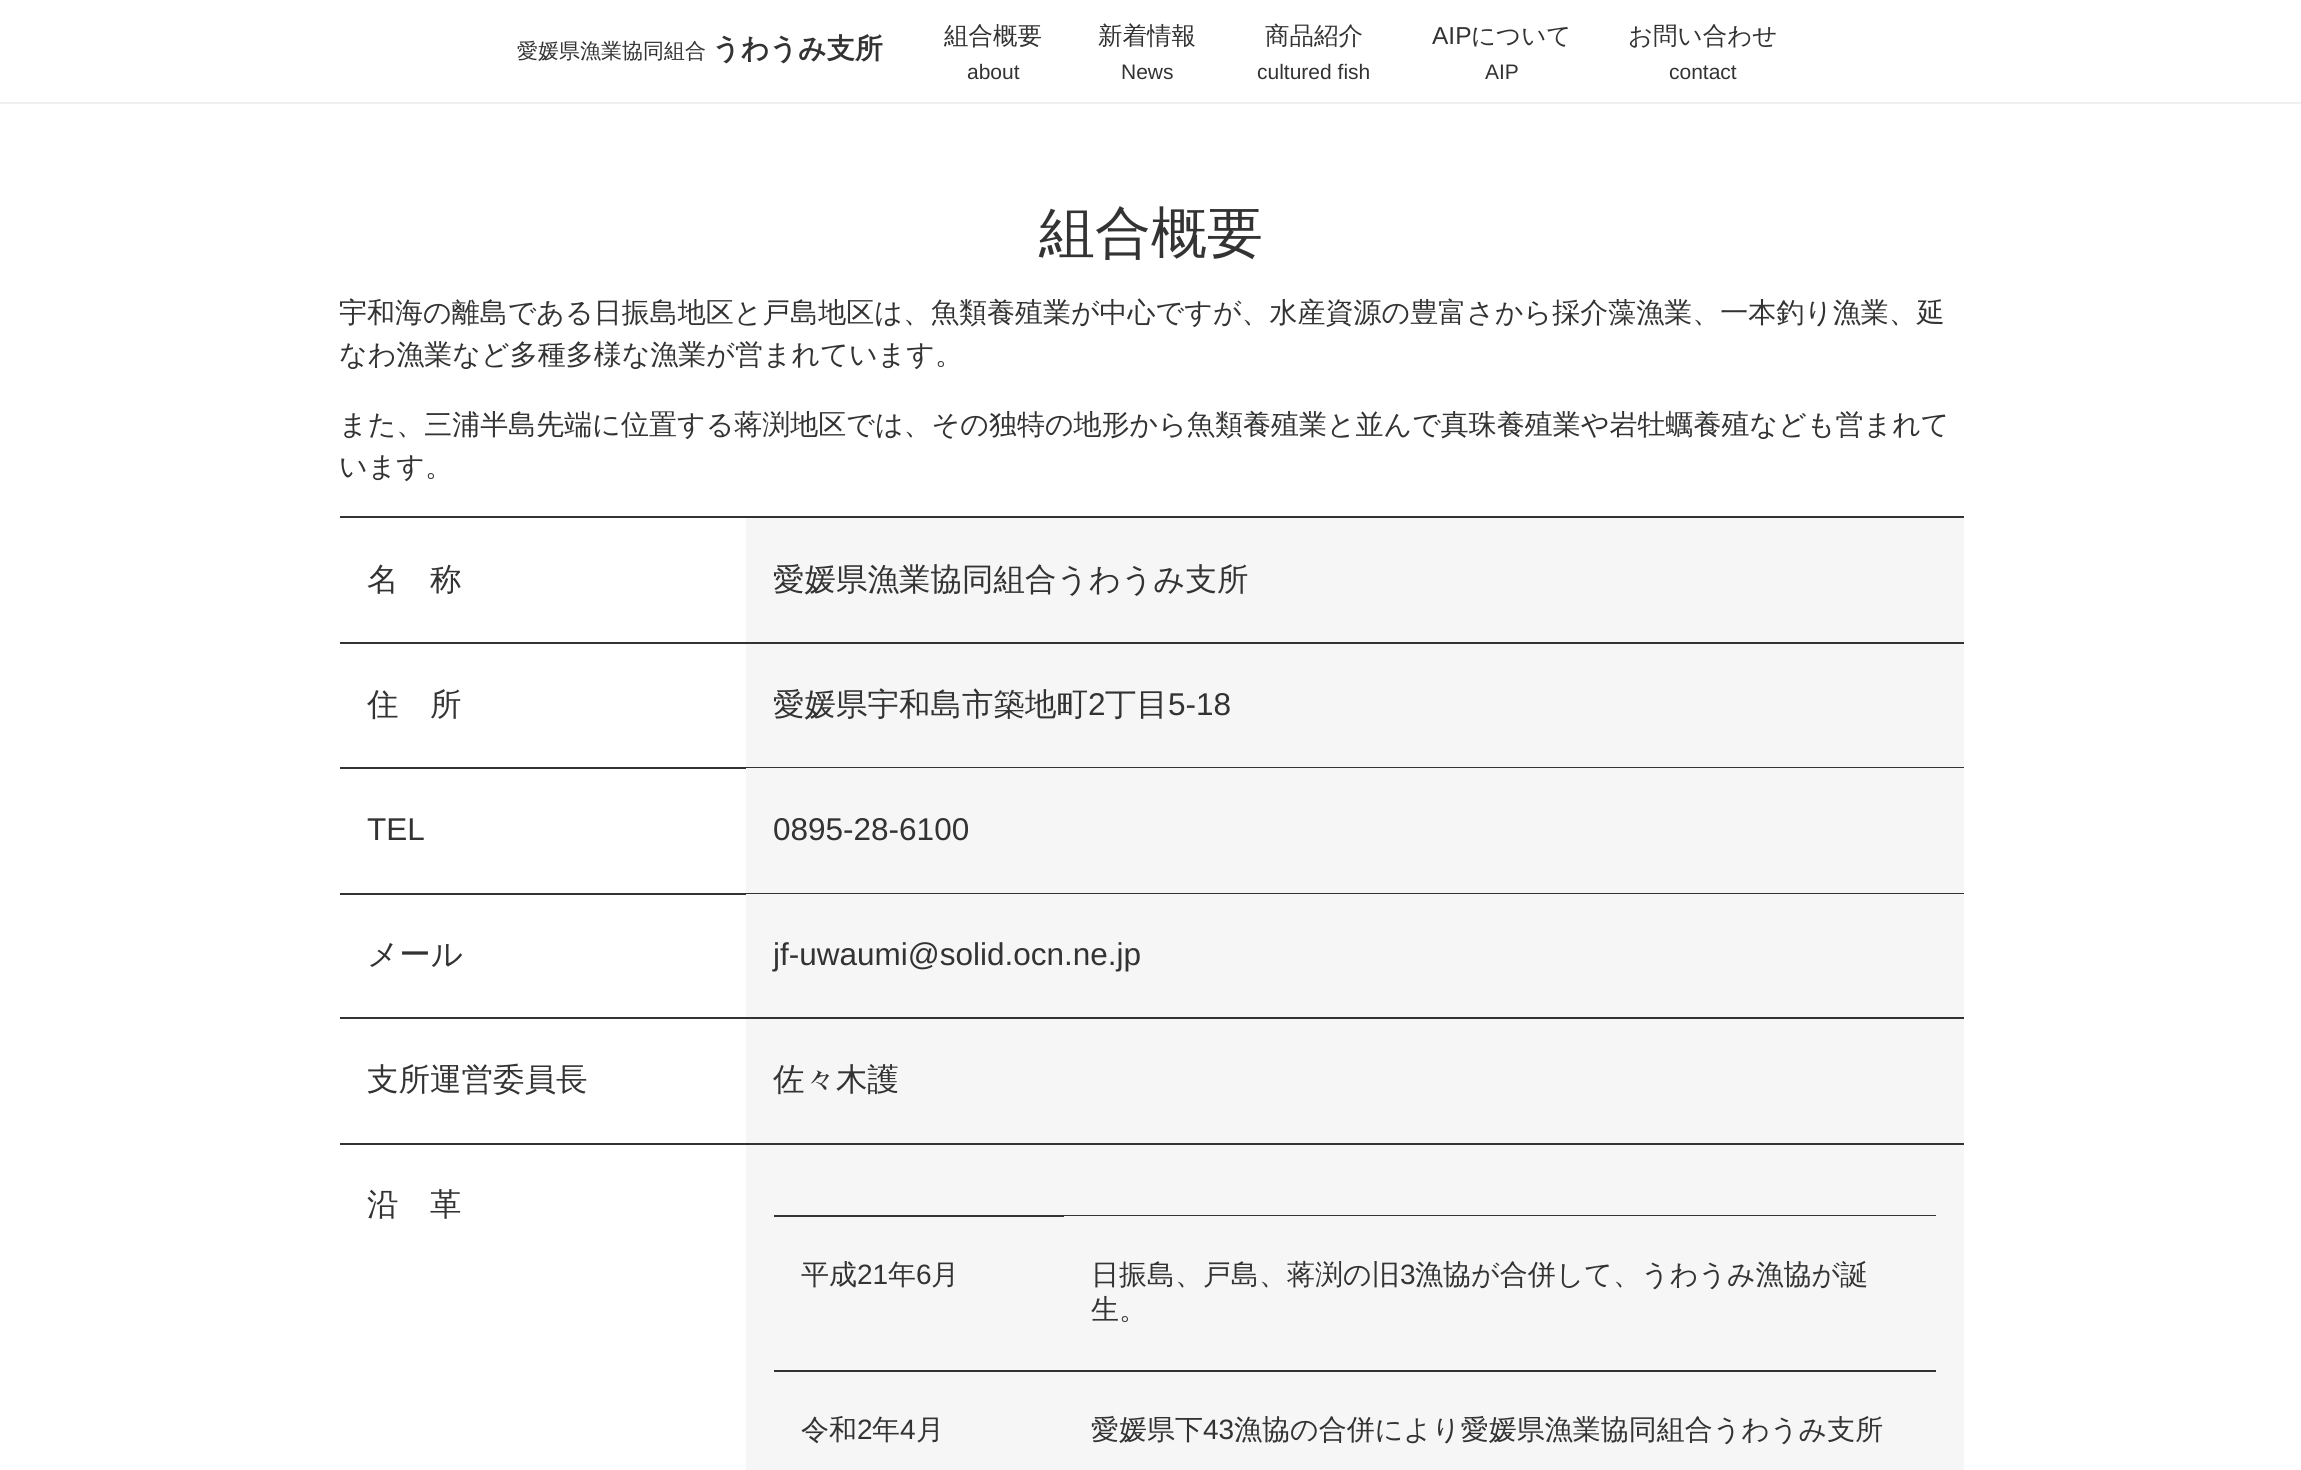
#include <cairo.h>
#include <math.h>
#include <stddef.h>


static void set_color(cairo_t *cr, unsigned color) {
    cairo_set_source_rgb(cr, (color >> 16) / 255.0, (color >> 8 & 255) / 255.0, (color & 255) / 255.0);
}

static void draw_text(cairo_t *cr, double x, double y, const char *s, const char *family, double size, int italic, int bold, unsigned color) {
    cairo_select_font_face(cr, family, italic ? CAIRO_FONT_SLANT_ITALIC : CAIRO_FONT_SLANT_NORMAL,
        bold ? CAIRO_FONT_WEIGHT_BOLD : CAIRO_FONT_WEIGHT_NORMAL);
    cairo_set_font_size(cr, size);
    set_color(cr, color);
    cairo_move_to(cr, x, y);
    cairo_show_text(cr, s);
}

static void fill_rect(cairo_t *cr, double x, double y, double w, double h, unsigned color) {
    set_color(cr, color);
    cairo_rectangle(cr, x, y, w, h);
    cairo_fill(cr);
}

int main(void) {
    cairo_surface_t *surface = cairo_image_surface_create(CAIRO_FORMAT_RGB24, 2301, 1470);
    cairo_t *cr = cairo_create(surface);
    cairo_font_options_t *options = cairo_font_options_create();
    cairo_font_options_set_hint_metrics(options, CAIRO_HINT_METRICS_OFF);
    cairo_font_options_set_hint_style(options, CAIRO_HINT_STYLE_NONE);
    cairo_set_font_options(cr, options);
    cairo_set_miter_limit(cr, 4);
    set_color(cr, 0xFFFFFF);
    cairo_paint(cr);
    fill_rect(cr, 0, 102, 2301, 2, 0xF0F0F0);
    draw_text(cr, 517, 58, "愛媛県漁業協同組合", "WenQuanYi Zen Hei Medium", 21, 0, 0, 0x333333);
    draw_text(cr, 712, 58, "うわうみ支所", "WenQuanYi Zen Hei", 28, 0, 1, 0x333333);
    draw_text(cr, 944, 44, "組合概要", "WenQuanYi Zen Hei Medium", 24.5, 0, 0, 0x333333);
    draw_text(cr, 967, 79, "about", "Liberation Sans", 21, 0, 0, 0x333333);
    draw_text(cr, 1098, 44, "新着情報", "WenQuanYi Zen Hei Medium", 24.5, 0, 0, 0x333333);
    draw_text(cr, 1121, 79, "News", "Liberation Sans", 21, 0, 0, 0x333333);
    draw_text(cr, 1265, 44, "商品紹介", "WenQuanYi Zen Hei Medium", 24.5, 0, 0, 0x333333);
    draw_text(cr, 1257, 79, "cultured fish", "Liberation Sans", 21, 0, 0, 0x333333);
    draw_text(cr, 1432, 44, "AIP", "Liberation Sans", 24.5, 0, 0, 0x333333);
    draw_text(cr, 1471, 44, "について", "WenQuanYi Zen Hei Medium", 24.5, 0, 0, 0x333333);
    draw_text(cr, 1485, 79, "AIP", "Liberation Sans", 21, 0, 0, 0x333333);
    draw_text(cr, 1628, 44, "お問い合わせ", "WenQuanYi Zen Hei Medium", 24.5, 0, 0, 0x333333);
    draw_text(cr, 1669, 79, "contact", "Liberation Sans", 21, 0, 0, 0x333333);
    draw_text(cr, 1039, 252, "組合概要", "WenQuanYi Zen Hei Medium", 56, 0, 0, 0x333333);
    draw_text(cr, 339, 322, "宇和海の離島である日振島地区と戸島地区は、魚類養殖業が中心ですが、水産資源の豊富さから採介藻漁業、一本釣り漁業、延", "WenQuanYi Zen Hei Medium", 28, 0, 0, 0x333333);
    draw_text(cr, 339, 364, "なわ漁業など多種多様な漁業が営まれています。", "WenQuanYi Zen Hei Medium", 28, 0, 0, 0x333333);
    draw_text(cr, 339, 434, "また、三浦半島先端に位置する蒋渕地区では、その独特の地形から魚類養殖業と並んで真珠養殖業や岩牡蠣養殖なども営まれて", "WenQuanYi Zen Hei Medium", 28, 0, 0, 0x333333);
    draw_text(cr, 339, 476, "います。", "WenQuanYi Zen Hei Medium", 28, 0, 0, 0x333333);
    fill_rect(cr, 340, 516, 1624, 2, 0x333333);
    fill_rect(cr, 340, 642, 1624, 2, 0x333333);
    draw_text(cr, 367, 590, "名　称", "WenQuanYi Zen Hei Medium", 31.5, 0, 0, 0x333333);
    fill_rect(cr, 746, 518, 1218, 124, 0xF6F6F6);
    draw_text(cr, 773, 590, "愛媛県漁業協同組合うわうみ支所", "WenQuanYi Zen Hei Medium", 31.5, 0, 0, 0x333333);
    fill_rect(cr, 340, 767, 406, 2, 0x333333);
    draw_text(cr, 367, 715, "住　所", "WenQuanYi Zen Hei Medium", 31.5, 0, 0, 0x333333);
    fill_rect(cr, 746, 644, 1218, 123, 0xF6F6F6);
    fill_rect(cr, 746, 767, 1218, 1, 0x333333);
    draw_text(cr, 773, 715, "愛媛県宇和島市築地町", "WenQuanYi Zen Hei Medium", 31.5, 0, 0, 0x333333);
    draw_text(cr, 1088, 715, "2", "Liberation Sans", 31.5, 0, 0, 0x333333);
    draw_text(cr, 1105, 715, "丁目", "WenQuanYi Zen Hei Medium", 31.5, 0, 0, 0x333333);
    draw_text(cr, 1168, 715, "5-18", "Liberation Sans", 31.5, 0, 0, 0x333333);
    fill_rect(cr, 340, 893, 406, 2, 0x333333);
    draw_text(cr, 367, 840, "TEL", "Liberation Sans", 31.5, 0, 0, 0x333333);
    fill_rect(cr, 746, 768, 1218, 125, 0xF6F6F6);
    fill_rect(cr, 746, 893, 1218, 1, 0x333333);
    draw_text(cr, 773, 840, "0895-28-6100", "Liberation Sans", 31.5, 0, 0, 0x333333);
    fill_rect(cr, 340, 1017, 1624, 2, 0x333333);
    draw_text(cr, 367, 965, "メール", "WenQuanYi Zen Hei Medium", 31.5, 0, 0, 0x333333);
    fill_rect(cr, 746, 894, 1218, 123, 0xF6F6F6);
    draw_text(cr, 773, 965, "jf-uwaumi@solid.ocn.ne.jp", "Liberation Sans", 31.5, 0, 0, 0x333333);
    fill_rect(cr, 340, 1143, 1624, 2, 0x333333);
    draw_text(cr, 367, 1090, "支所運営委員長", "WenQuanYi Zen Hei Medium", 31.5, 0, 0, 0x333333);
    fill_rect(cr, 746, 1019, 1218, 124, 0xF6F6F6);
    draw_text(cr, 773, 1090, "佐々木護", "WenQuanYi Zen Hei Medium", 31.5, 0, 0, 0x333333);
    draw_text(cr, 367, 1215, "沿　革", "WenQuanYi Zen Hei Medium", 31.5, 0, 0, 0x333333);
    fill_rect(cr, 746, 1145, 1218, 325, 0xF6F6F6);
    fill_rect(cr, 774, 1215, 1162, 2, 0x333333);
    fill_rect(cr, 774, 1370, 1162, 2, 0x333333);
    draw_text(cr, 801, 1284, "平成", "WenQuanYi Zen Hei Medium", 28, 0, 0, 0x333333);
    draw_text(cr, 857, 1284, "21", "Liberation Sans", 28, 0, 0, 0x333333);
    draw_text(cr, 888, 1284, "年", "WenQuanYi Zen Hei Medium", 28, 0, 0, 0x333333);
    draw_text(cr, 916, 1284, "6", "Liberation Sans", 28, 0, 0, 0x333333);
    draw_text(cr, 931, 1284, "月", "WenQuanYi Zen Hei Medium", 28, 0, 0, 0x333333);
    fill_rect(cr, 1064, 1216, 872, 1, 0xF6F6F6);
    draw_text(cr, 1091, 1284, "日振島、戸島、蒋渕の旧", "WenQuanYi Zen Hei Medium", 28, 0, 0, 0x333333);
    draw_text(cr, 1400, 1284, "3", "Liberation Sans", 28, 0, 0, 0x333333);
    draw_text(cr, 1415, 1284, "漁協が合併して、うわうみ漁協が誕", "WenQuanYi Zen Hei Medium", 28, 0, 0, 0x333333);
    draw_text(cr, 1091, 1319, "生。", "WenQuanYi Zen Hei Medium", 28, 0, 0, 0x333333);
    draw_text(cr, 801, 1439, "令和", "WenQuanYi Zen Hei Medium", 28, 0, 0, 0x333333);
    draw_text(cr, 857, 1439, "2", "Liberation Sans", 28, 0, 0, 0x333333);
    draw_text(cr, 872, 1439, "年", "WenQuanYi Zen Hei Medium", 28, 0, 0, 0x333333);
    draw_text(cr, 900, 1439, "4", "Liberation Sans", 28, 0, 0, 0x333333);
    draw_text(cr, 916, 1439, "月", "WenQuanYi Zen Hei Medium", 28, 0, 0, 0x333333);
    draw_text(cr, 1091, 1439, "愛媛県下", "WenQuanYi Zen Hei Medium", 28, 0, 0, 0x333333);
    draw_text(cr, 1203, 1439, "43", "Liberation Sans", 28, 0, 0, 0x333333);
    draw_text(cr, 1234, 1439, "漁協の合併により愛媛県漁業協同組合うわうみ支所", "WenQuanYi Zen Hei Medium", 28, 0, 0, 0x333333);
    cairo_surface_write_to_png(surface, "output.png");
    cairo_font_options_destroy(options);
    cairo_destroy(cr);
    cairo_surface_destroy(surface);
    return 0;
}
